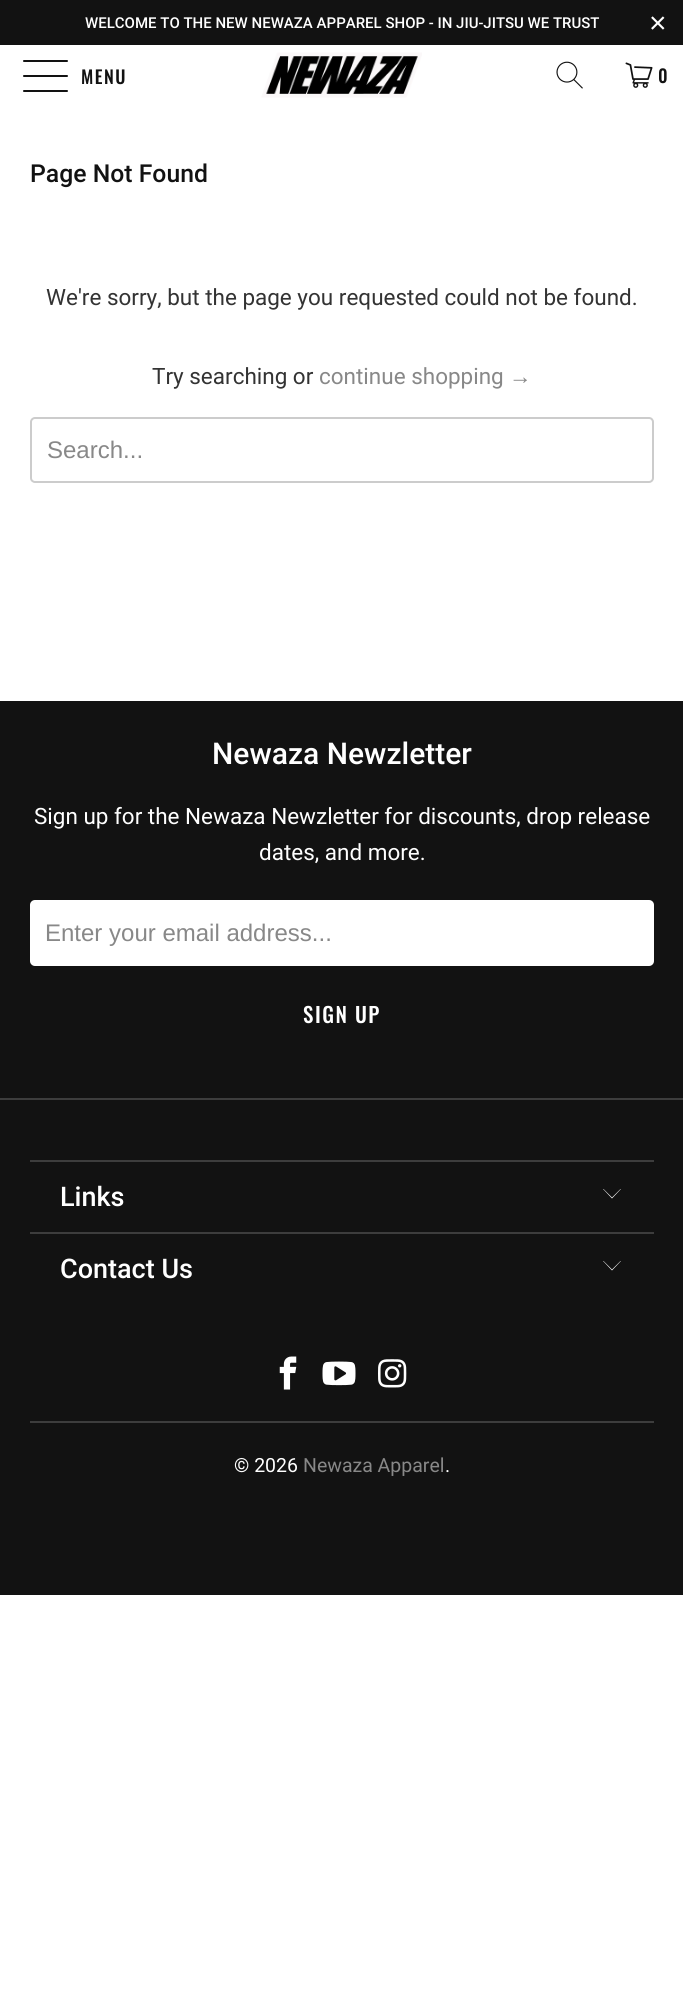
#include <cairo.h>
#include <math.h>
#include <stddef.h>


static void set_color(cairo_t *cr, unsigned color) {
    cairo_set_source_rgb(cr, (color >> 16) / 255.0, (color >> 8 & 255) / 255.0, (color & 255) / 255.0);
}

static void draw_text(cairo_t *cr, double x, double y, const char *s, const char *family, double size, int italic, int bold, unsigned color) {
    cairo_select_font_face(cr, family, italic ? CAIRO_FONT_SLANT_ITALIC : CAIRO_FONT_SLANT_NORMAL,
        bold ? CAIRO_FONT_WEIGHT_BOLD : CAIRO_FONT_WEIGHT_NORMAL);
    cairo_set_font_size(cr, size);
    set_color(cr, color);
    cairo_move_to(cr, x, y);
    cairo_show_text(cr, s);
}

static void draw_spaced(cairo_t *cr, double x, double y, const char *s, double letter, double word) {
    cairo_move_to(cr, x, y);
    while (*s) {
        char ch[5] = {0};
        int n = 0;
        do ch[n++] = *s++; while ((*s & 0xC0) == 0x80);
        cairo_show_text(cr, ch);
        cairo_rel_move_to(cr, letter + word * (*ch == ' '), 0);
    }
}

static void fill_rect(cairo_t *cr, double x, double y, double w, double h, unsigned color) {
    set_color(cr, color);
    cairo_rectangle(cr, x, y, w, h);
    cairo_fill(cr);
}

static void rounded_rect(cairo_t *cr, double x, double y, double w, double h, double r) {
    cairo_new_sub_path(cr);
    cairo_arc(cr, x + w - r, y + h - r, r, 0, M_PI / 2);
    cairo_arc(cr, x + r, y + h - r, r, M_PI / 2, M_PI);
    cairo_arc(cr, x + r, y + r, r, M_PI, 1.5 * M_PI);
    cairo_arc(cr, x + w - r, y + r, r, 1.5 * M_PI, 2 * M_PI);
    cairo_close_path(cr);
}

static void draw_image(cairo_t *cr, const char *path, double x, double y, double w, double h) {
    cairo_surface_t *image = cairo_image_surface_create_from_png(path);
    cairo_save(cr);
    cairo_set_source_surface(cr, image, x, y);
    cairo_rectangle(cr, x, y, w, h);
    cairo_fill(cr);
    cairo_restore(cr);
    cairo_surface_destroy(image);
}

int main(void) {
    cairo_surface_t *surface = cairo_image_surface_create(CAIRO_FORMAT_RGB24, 683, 2009);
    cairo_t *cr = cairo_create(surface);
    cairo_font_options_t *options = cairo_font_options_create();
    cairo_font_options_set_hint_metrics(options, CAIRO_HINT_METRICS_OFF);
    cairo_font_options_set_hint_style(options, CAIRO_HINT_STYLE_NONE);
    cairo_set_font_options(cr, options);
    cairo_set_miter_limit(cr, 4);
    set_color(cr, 0xFFFFFF);
    cairo_paint(cr);
    fill_rect(cr, 0, 0, 683, 45, 0x121212);
    draw_text(cr, 85, 28, "WELCOME TO THE NEW NEWAZA APPAREL SHOP - IN JIU-JITSU WE TRUST", "Roboto Medium", 15, 0, 0, 0xFFFFFF);
    draw_text(cr, 649, 33, "×", "Liberation Sans", 30, 0, 0, 0xFFFFFF);
    set_color(cr, 0x121212);
    rounded_rect(cr, 23, 60, 45, 2, 1);
    cairo_fill(cr);
    rounded_rect(cr, 23, 75, 45, 2, 1);
    cairo_fill(cr);
    rounded_rect(cr, 23, 90, 45, 2, 1);
    cairo_fill(cr);
    cairo_select_font_face(cr, "Oswald Medium", CAIRO_FONT_SLANT_NORMAL, CAIRO_FONT_WEIGHT_NORMAL);
    cairo_set_font_size(cr, 18);
    draw_spaced(cr, 81, 84, "MENU", 1.5, 0);
    draw_image(cr, "assets/img1.png", 261, 52, 161, 46);
    draw_image(cr, "assets/img2.png", 556, 61, 27, 28);
    draw_image(cr, "assets/img3.png", 625, 62, 28, 26);
    draw_spaced(cr, 658, 83, "0", 1.5, 0);
    draw_text(cr, 30, 182, "Page Not Found", "Roboto Medium", 24.75, 0, 0, 0x121212);
    draw_text(cr, 46, 305, "We're sorry, but the page you requested could not be found.", "Roboto", 22.5, 0, 0, 0x333333);
    draw_text(cr, 152, 384, "Try searching or", "Roboto", 22.5, 0, 0, 0x333333);
    draw_text(cr, 319, 384, "continue shopping", "Roboto", 22.5, 0, 0, 0x888888);
    draw_text(cr, 509, 384, "→", "Liberation Sans", 22.5, 0, 0, 0x888888);
    rounded_rect(cr, 31, 418, 622, 64, 4);
    set_color(cr, 0xCCCCCC);
    cairo_stroke(cr);
    draw_text(cr, 47, 458, "Search...", "Liberation Sans", 24, 0, 0, 0x888888);
    fill_rect(cr, 0, 701, 683, 397, 0x121212);
    draw_text(cr, 212, 764, "Newaza Newzletter", "Roboto Medium", 30, 0, 0, 0xFFFFFF);
    draw_text(cr, 34, 824, "Sign up for the Newaza Newzletter for discounts, drop release", "Roboto", 22.5, 0, 0, 0xFFFFFF);
    draw_text(cr, 259, 860, "dates, and more.", "Roboto", 22.5, 0, 0, 0xFFFFFF);
    rounded_rect(cr, 30, 900, 624, 66, 5);
    cairo_fill(cr);
    draw_text(cr, 45, 941, "Enter your email address...", "Liberation Sans", 24, 0, 0, 0x888888);
    cairo_select_font_face(cr, "Oswald Medium", CAIRO_FONT_SLANT_NORMAL, CAIRO_FONT_WEIGHT_NORMAL);
    cairo_set_font_size(cr, 21);
    set_color(cr, 0xFFFFFF);
    draw_spaced(cr, 303, 1023, "SIGN UP", 1.5, 0);
    fill_rect(cr, 0, 1100, 683, 495, 0x121212);
    fill_rect(cr, 0, 1098, 683, 2, 0x3D3D3D);
    fill_rect(cr, 30, 1160, 624, 2, 0x3D3D3D);
    draw_text(cr, 60, 1206, "Links", "Roboto Medium", 27, 0, 0, 0xFFFFFF);
    cairo_new_path(cr);
    cairo_move_to(cr, 612, 1198.5);
    cairo_line_to(cr, 603, 1189);
    cairo_line_to(cr, 603.5, 1189);
    cairo_line_to(cr, 612, 1197.5);
    cairo_line_to(cr, 620.5, 1189);
    cairo_line_to(cr, 621, 1189);
    cairo_close_path(cr);
    cairo_fill(cr);
    fill_rect(cr, 30, 1232, 624, 2, 0x3D3D3D);
    draw_text(cr, 60, 1278, "Contact Us", "Roboto Medium", 27, 0, 0, 0xFFFFFF);
    cairo_new_path(cr);
    cairo_move_to(cr, 612, 1270.5);
    cairo_line_to(cr, 603, 1261);
    cairo_line_to(cr, 603.5, 1261);
    cairo_line_to(cr, 612, 1269.5);
    cairo_line_to(cr, 620.5, 1261);
    cairo_line_to(cr, 621, 1261);
    cairo_close_path(cr);
    cairo_fill(cr);
    draw_image(cr, "assets/img4.png", 279, 1356, 18, 34);
    draw_image(cr, "assets/img5.png", 322, 1361, 34, 25);
    draw_image(cr, "assets/img6.png", 378, 1359, 29, 29);
    fill_rect(cr, 30, 1421, 624, 2, 0x3D3D3D);
    draw_text(cr, 234, 1472, "© 2026", "Roboto", 19.5, 0, 0, 0xFFFFFF);
    draw_text(cr, 303, 1472, "Newaza Apparel", "Roboto", 19.5, 0, 0, 0x888888);
    draw_text(cr, 445, 1472, ".", "Roboto", 19.5, 0, 0, 0xFFFFFF);
    cairo_surface_write_to_png(surface, "output.png");
    cairo_font_options_destroy(options);
    cairo_destroy(cr);
    cairo_surface_destroy(surface);
    return 0;
}
